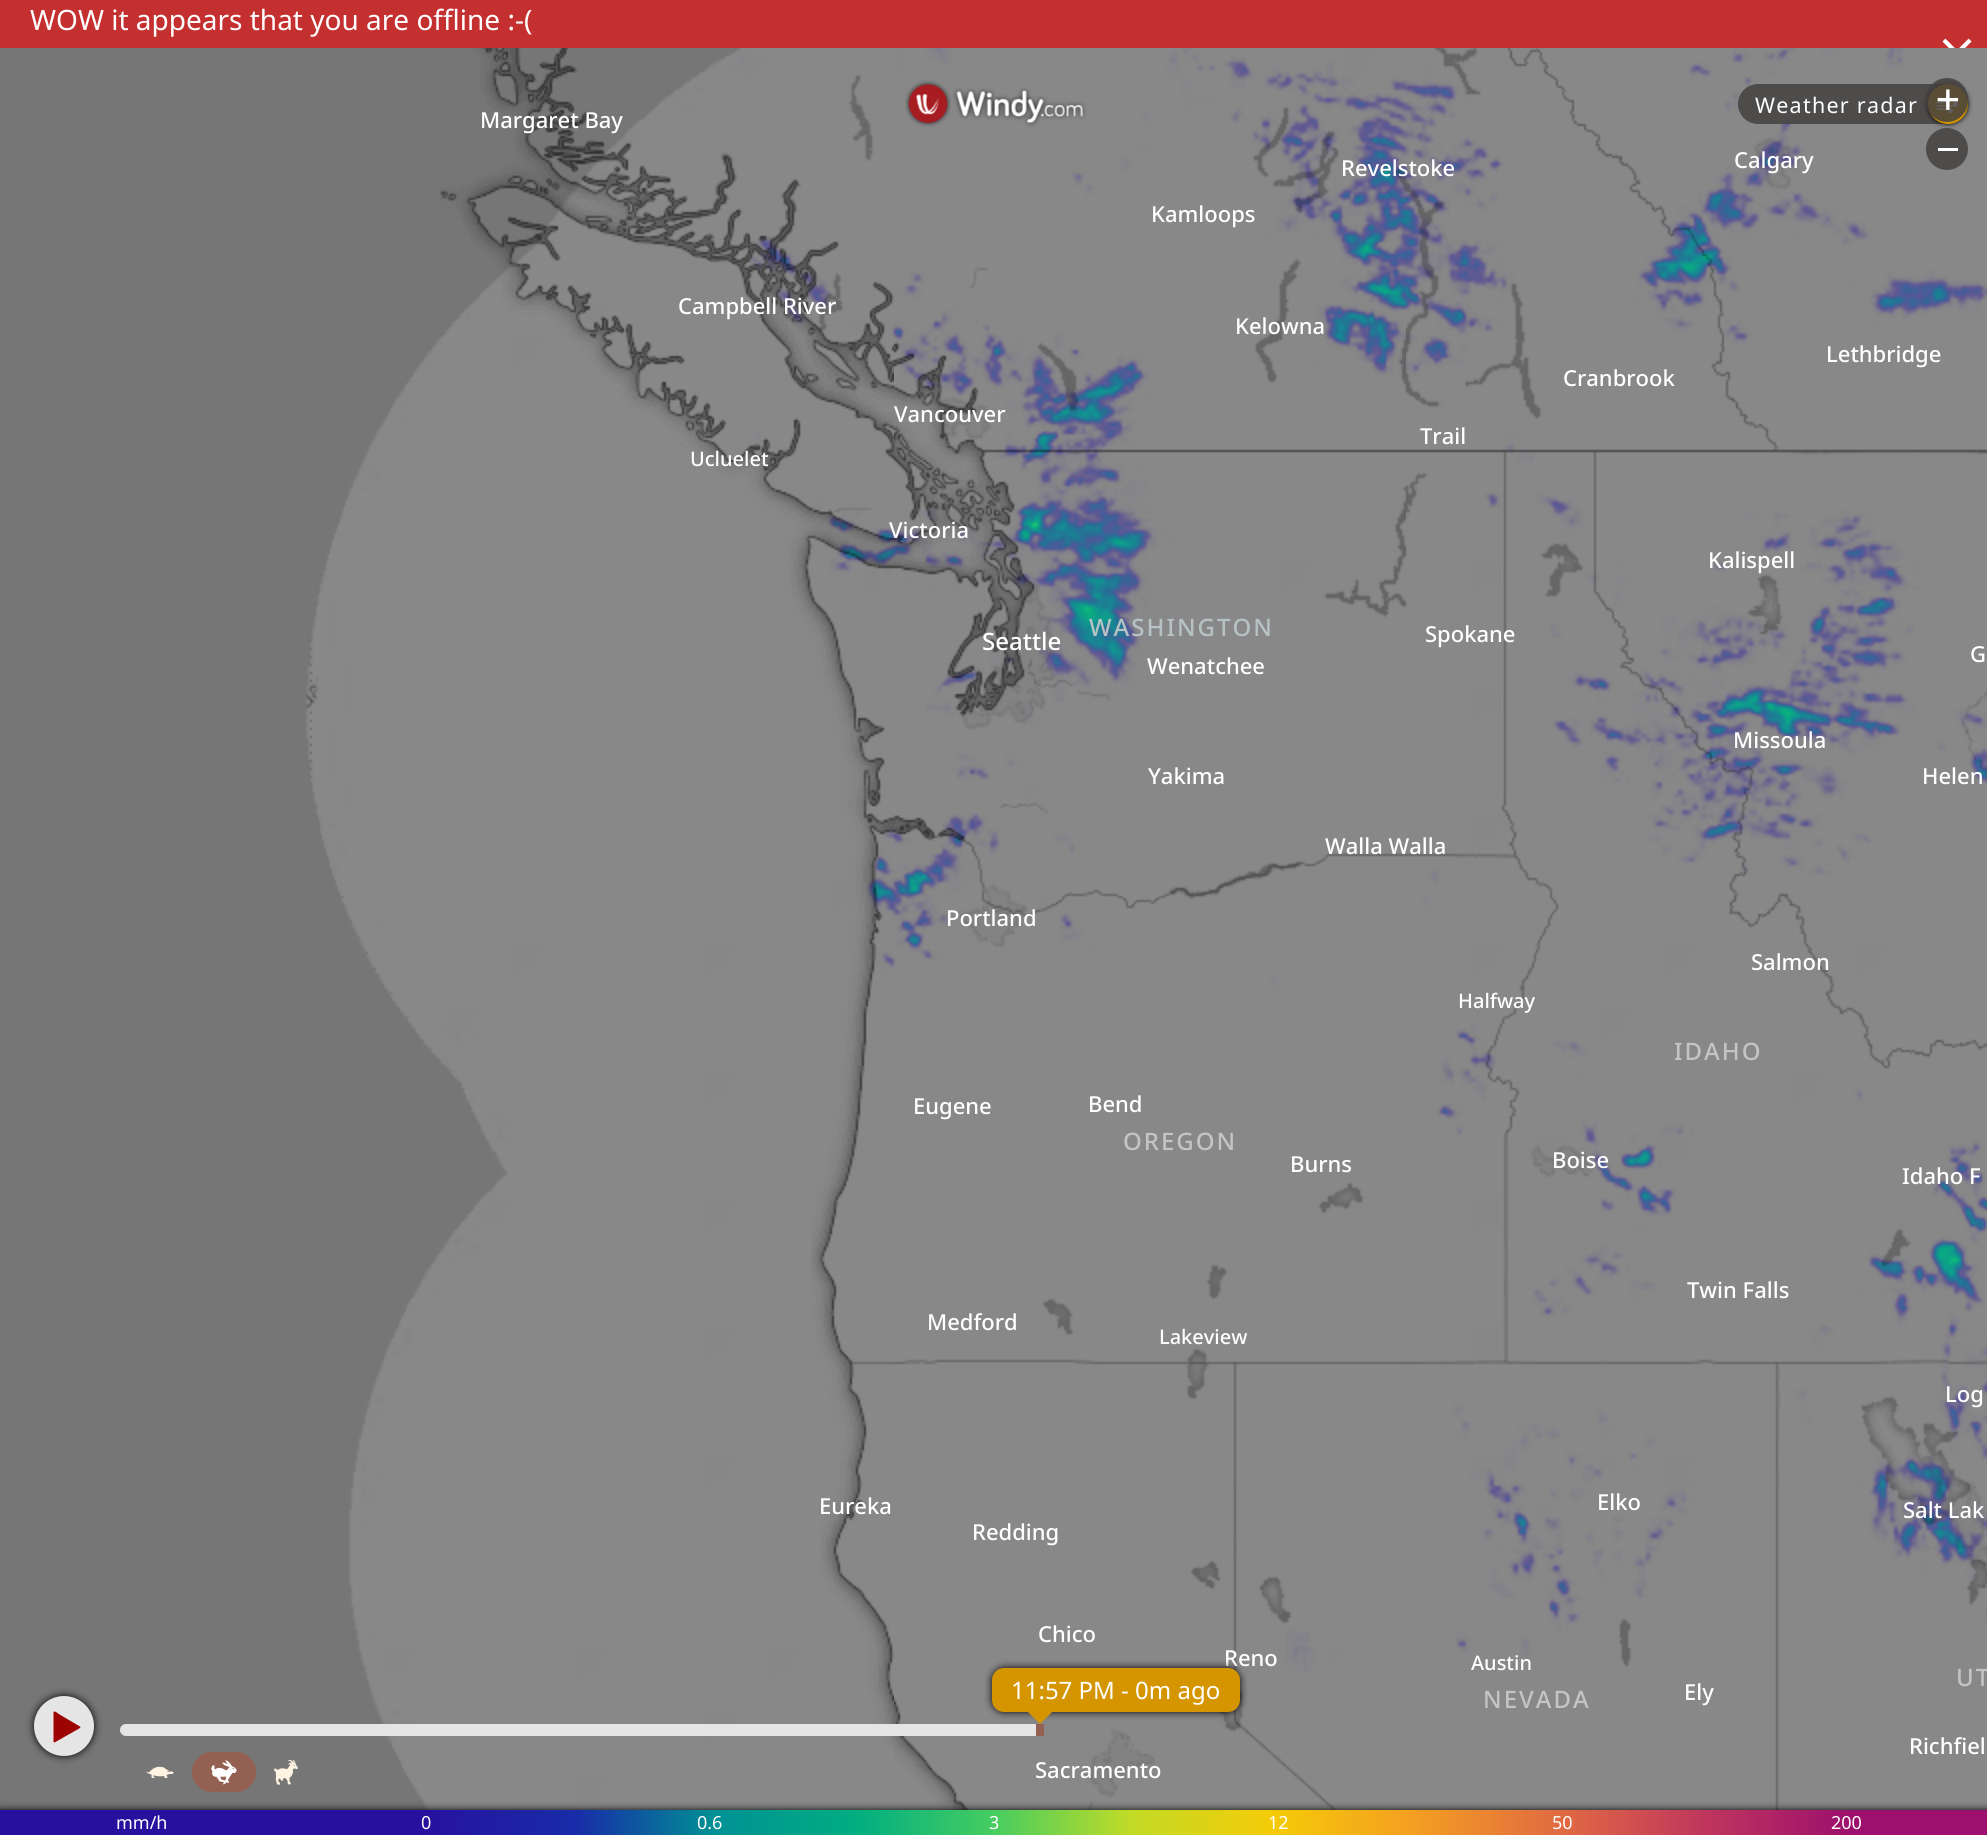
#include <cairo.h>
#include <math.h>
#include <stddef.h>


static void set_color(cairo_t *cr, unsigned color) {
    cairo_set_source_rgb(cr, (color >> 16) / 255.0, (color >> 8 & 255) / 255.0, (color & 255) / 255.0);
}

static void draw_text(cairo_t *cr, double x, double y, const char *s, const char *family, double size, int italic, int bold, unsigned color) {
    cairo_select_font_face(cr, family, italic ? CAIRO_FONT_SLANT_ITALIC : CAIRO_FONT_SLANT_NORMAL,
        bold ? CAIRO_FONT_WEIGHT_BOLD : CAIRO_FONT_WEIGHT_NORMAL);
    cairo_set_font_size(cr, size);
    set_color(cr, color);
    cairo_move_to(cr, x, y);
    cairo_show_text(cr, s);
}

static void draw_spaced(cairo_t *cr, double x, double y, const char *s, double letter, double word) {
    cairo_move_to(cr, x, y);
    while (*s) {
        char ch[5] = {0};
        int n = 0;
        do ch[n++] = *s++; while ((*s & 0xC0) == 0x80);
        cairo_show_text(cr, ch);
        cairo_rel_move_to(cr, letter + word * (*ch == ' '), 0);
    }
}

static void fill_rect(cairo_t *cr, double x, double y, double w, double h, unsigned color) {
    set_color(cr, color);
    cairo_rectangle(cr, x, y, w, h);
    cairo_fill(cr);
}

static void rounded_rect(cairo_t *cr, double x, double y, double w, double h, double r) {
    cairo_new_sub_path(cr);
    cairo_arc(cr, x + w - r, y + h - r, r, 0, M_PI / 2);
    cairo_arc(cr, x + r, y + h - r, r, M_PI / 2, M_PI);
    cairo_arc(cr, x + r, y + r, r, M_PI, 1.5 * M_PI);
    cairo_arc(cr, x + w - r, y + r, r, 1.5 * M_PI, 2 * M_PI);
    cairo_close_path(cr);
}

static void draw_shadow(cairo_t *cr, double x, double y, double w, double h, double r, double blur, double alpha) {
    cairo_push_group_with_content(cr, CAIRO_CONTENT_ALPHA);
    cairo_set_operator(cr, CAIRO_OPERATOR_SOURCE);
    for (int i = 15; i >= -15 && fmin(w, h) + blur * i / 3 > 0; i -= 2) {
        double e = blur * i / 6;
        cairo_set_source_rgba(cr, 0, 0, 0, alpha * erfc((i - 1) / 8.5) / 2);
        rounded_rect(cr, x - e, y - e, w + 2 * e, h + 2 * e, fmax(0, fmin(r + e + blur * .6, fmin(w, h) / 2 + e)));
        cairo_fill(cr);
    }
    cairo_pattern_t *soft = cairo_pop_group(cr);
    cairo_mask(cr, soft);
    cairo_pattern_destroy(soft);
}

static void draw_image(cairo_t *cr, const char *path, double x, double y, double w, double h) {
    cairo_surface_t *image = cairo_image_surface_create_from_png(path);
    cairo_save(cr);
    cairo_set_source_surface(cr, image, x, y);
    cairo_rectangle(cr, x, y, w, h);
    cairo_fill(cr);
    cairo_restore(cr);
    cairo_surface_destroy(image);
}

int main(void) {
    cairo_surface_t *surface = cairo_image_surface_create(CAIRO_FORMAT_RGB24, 1987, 1835);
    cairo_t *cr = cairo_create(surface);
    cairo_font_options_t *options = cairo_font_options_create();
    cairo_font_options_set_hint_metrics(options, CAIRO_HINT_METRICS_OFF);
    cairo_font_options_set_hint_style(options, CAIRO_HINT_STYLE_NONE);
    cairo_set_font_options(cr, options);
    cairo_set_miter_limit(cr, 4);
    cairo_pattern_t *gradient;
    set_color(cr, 0xFFFFFF);
    cairo_paint(cr);
    fill_rect(cr, 0, 0, 1987, 48, 0xC42F2F);
    draw_text(cr, 30, 30, "WOW it appears that you are offline :-(", "Noto Sans", 28, 0, 0, 0xFFFFFF);
    draw_image(cr, "assets/img1.png", 1942, 38, 30, 10);
    draw_image(cr, "assets/img6.png", 0, 48, 1987, 1762);
    draw_image(cr, "assets/img8.png", 894, 106, 512, 356);
    draw_image(cr, "assets/img2.png", 905, 80, 46, 47);
    draw_image(cr, "assets/img3.png", 953, 87, 134, 40);
    draw_image(cr, "assets/img9.png", 1406, 48, 512, 414);
    cairo_set_source_rgba(cr, 0.267, 0.255, 0.255, 0.84);
    rounded_rect(cr, 1738, 84, 230, 40, 20);
    cairo_fill(cr);
    cairo_set_font_size(cr, 21.5);
    set_color(cr, 0xFFFFFF);
    draw_spaced(cr, 1755, 113, "Weather radar", 1.25, 0);
    set_color(cr, 0x000000);
    draw_shadow(cr, 1928, 84, 40, 40, 20, 2.5, 1);
    set_color(cr, 0xD49500);
    cairo_arc(cr, 1948, 104, 20, 0, 2 * M_PI);
    cairo_fill(cr);
    draw_image(cr, "assets/img4.png", 1936, 101, 22, 13);
    cairo_set_source_rgba(cr, 0.267, 0.255, 0.255, 0.84);
    rounded_rect(cr, 1926, 78, 42, 44, 21);
    cairo_fill(cr);
    draw_image(cr, "assets/img5.png", 1937, 89, 22, 21);
    cairo_arc(cr, 1947, 149, 21, 0, 2 * M_PI);
    cairo_fill(cr);
    fill_rect(cr, 1938, 148, 20, 3, 0xFFFFFF);
    draw_image(cr, "assets/img7.png", 439, 48, 455, 414);
    draw_image(cr, "assets/img10.png", 1918, 449, 69, 6);
    draw_image(cr, "assets/img11.png", 715, 462, 179, 512);
    draw_image(cr, "assets/img12.png", 894, 462, 512, 485);
    draw_image(cr, "assets/img13.png", 1406, 462, 423, 512);
    draw_image(cr, "assets/img14.png", 1961, 691, 26, 80);
    draw_image(cr, "assets/img15.png", 811, 974, 83, 512);
    draw_image(cr, "assets/img16.png", 894, 1183, 512, 303);
    draw_image(cr, "assets/img17.png", 1406, 974, 512, 512);
    draw_image(cr, "assets/img18.png", 1918, 1039, 69, 447);
    draw_image(cr, "assets/img19.png", 820, 1486, 74, 264);
    draw_image(cr, "assets/img20.png", 894, 1486, 444, 324);
    draw_image(cr, "assets/img21.png", 1619, 1486, 299, 324);
    draw_image(cr, "assets/img22.png", 1918, 1486, 69, 119);
    draw_text(cr, 480, 128, "Margaret Bay", "Noto Sans Medium", 22, 0, 0, 0xFFFFFF);
    draw_text(cr, 678, 314, "Campbell River", "Noto Sans Medium", 22, 0, 0, 0xFFFFFF);
    draw_text(cr, 690, 466, "Ucluelet", "Noto Sans Medium", 20, 0, 0, 0xFFFFFF);
    draw_text(cr, 1341, 176, "Revelstoke", "Noto Sans Medium", 22, 0, 0, 0xFFFFFF);
    draw_text(cr, 1151, 222, "Kamloops", "Noto Sans Medium", 22, 0, 0, 0xFFFFFF);
    draw_text(cr, 1235, 334, "Kelowna", "Noto Sans Medium", 22, 0, 0, 0xFFFFFF);
    draw_text(cr, 894, 422, "Vancouver", "Noto Sans Medium", 22, 0, 0, 0xFFFFFF);
    draw_text(cr, 1734, 168, "Calgary", "Noto Sans Medium", 22, 0, 0, 0xFFFFFF);
    draw_text(cr, 1826, 362, "Lethbridge", "Noto Sans Medium", 22, 0, 0, 0xFFFFFF);
    draw_text(cr, 1563, 386, "Cranbrook", "Noto Sans Medium", 22, 0, 0, 0xFFFFFF);
    draw_text(cr, 1420, 444, "Trail", "Noto Sans Medium", 22, 0, 0, 0xFFFFFF);
    draw_text(cr, 889, 538, "Victoria", "Noto Sans Medium", 22, 0, 0, 0xFFFFFF);
    cairo_set_font_size(cr, 24);
    set_color(cr, 0xB7C2C5);
    draw_spaced(cr, 1089, 636, "WASHINGTON", 2, 0);
    draw_text(cr, 982, 650, "Seattle", "Noto Sans Medium", 24, 0, 0, 0xFFFFFF);
    draw_text(cr, 1147, 674, "Wenatchee", "Noto Sans Medium", 22, 0, 0, 0xFFFFFF);
    draw_text(cr, 1148, 784, "Yakima", "Noto Sans Medium", 22, 0, 0, 0xFFFFFF);
    draw_text(cr, 1325, 854, "Walla Walla", "Noto Sans Medium", 22, 0, 0, 0xFFFFFF);
    draw_text(cr, 946, 926, "Portland", "Noto Sans Medium", 22, 0, 0, 0xFFFFFF);
    draw_text(cr, 1708, 568, "Kalispell", "Noto Sans Medium", 22, 0, 0, 0xFFFFFF);
    draw_text(cr, 1425, 642, "Spokane", "Noto Sans Medium", 22, 0, 0, 0xFFFFFF);
    draw_text(cr, 1733, 748, "Missoula", "Noto Sans Medium", 22, 0, 0, 0xFFFFFF);
    draw_text(cr, 1751, 970, "Salmon", "Noto Sans Medium", 22, 0, 0, 0xFFFFFF);
    draw_text(cr, 1970, 662, "G", "Noto Sans Medium", 22, 0, 0, 0xFFFFFF);
    draw_text(cr, 1922, 784, "Helen", "Noto Sans Medium", 22, 0, 0, 0xFFFFFF);
    draw_text(cr, 913, 1114, "Eugene", "Noto Sans Medium", 22, 0, 0, 0xFFFFFF);
    draw_text(cr, 1088, 1112, "Bend", "Noto Sans Medium", 22, 0, 0, 0xFFFFFF);
    cairo_set_font_size(cr, 24);
    set_color(cr, 0xC4C4C4);
    draw_spaced(cr, 1123, 1150, "OREGON", 2, 0);
    draw_text(cr, 1290, 1172, "Burns", "Noto Sans Medium", 22, 0, 0, 0xFFFFFF);
    draw_text(cr, 927, 1330, "Medford", "Noto Sans Medium", 22, 0, 0, 0xFFFFFF);
    draw_text(cr, 1159, 1344, "Lakeview", "Noto Sans Medium", 20, 0, 0, 0xFFFFFF);
    draw_text(cr, 1458, 1008, "Halfway", "Noto Sans Medium", 20, 0, 0, 0xFFFFFF);
    cairo_set_font_size(cr, 24);
    set_color(cr, 0xC4C4C4);
    draw_spaced(cr, 1674, 1060, "IDAHO", 2, 0);
    draw_text(cr, 1552, 1168, "Boise", "Noto Sans Medium", 22, 0, 0, 0xFFFFFF);
    draw_text(cr, 1687, 1298, "Twin Falls", "Noto Sans Medium", 22, 0, 0, 0xFFFFFF);
    draw_text(cr, 1902, 1184, "Idaho F", "Noto Sans Medium", 22, 0, 0, 0xFFFFFF);
    draw_text(cr, 1945, 1402, "Log", "Noto Sans Medium", 22, 0, 0, 0xFFFFFF);
    draw_text(cr, 819, 1514, "Eureka", "Noto Sans Medium", 22, 0, 0, 0xFFFFFF);
    draw_text(cr, 972, 1540, "Redding", "Noto Sans Medium", 22, 0, 0, 0xFFFFFF);
    draw_text(cr, 1038, 1642, "Chico", "Noto Sans Medium", 22, 0, 0, 0xFFFFFF);
    draw_text(cr, 1224, 1666, "Reno", "Noto Sans Medium", 22, 0, 0, 0xFFFFFF);
    draw_text(cr, 1035, 1778, "Sacramento", "Noto Sans Medium", 22, 0, 0, 0xFFFFFF);
    draw_text(cr, 1597, 1510, "Elko", "Noto Sans Medium", 22, 0, 0, 0xFFFFFF);
    draw_text(cr, 1471, 1670, "Austin", "Noto Sans Medium", 20, 0, 0, 0xFFFFFF);
    cairo_set_font_size(cr, 24);
    set_color(cr, 0xC4C4C4);
    draw_spaced(cr, 1483, 1708, "NEVADA", 2, 0);
    draw_text(cr, 1684, 1700, "Ely", "Noto Sans Medium", 22, 0, 0, 0xFFFFFF);
    draw_text(cr, 1903, 1518, "Salt Lak", "Noto Sans Medium", 22, 0, 0, 0xFFFFFF);
    cairo_set_font_size(cr, 24);
    set_color(cr, 0xC4C4C4);
    draw_spaced(cr, 1956, 1686, "UT", 2, 0);
    draw_text(cr, 1909, 1754, "Richfiel", "Noto Sans Medium", 22, 0, 0, 0xFFFFFF);
    set_color(cr, 0x000000);
    draw_shadow(cr, 34, 1696, 60, 60, 30, 4, 1);
    set_color(cr, 0xE5E5E5);
    cairo_arc(cr, 64, 1726, 30, 0, 2 * M_PI);
    cairo_fill(cr);
    set_color(cr, 0x9D0300);
    cairo_new_path(cr);
    cairo_move_to(cr, 80.5, 1727);
    cairo_line_to(cr, 80, 1726.5);
    cairo_line_to(cr, 59.5, 1714.5);
    cairo_curve_to(cr, 57.5, 1713, 54.5, 1710.5, 53.5, 1712);
    cairo_line_to(cr, 53.5, 1741.5);
    cairo_curve_to(cr, 53.5, 1742, 54, 1742.5, 54.5, 1742.5);
    cairo_line_to(cr, 80, 1728);
    cairo_close_path(cr);
    cairo_fill(cr);
    draw_image(cr, "assets/img23.png", 146, 1766, 28, 12);
    set_color(cr, 0x946051);
    rounded_rect(cr, 192, 1752, 64, 40, 20);
    cairo_fill(cr);
    draw_image(cr, "assets/img24.png", 211, 1760, 26, 25);
    draw_image(cr, "assets/img25.png", 274, 1760, 24, 25);
    set_color(cr, 0xE5E5E5);
    rounded_rect(cr, 120, 1724, 920, 12, 6);
    cairo_fill(cr);
    set_color(cr, 0x000000);
    draw_shadow(cr, 992, 1668, 248, 44, 12, 4, 1);
    set_color(cr, 0xD49500);
    rounded_rect(cr, 992, 1668, 248, 44, 12);
    cairo_fill(cr);
    draw_text(cr, 1011, 1699, "11:57 PM - 0m ago", "Noto Sans", 24, 0, 0, 0xFFFFFF);
    set_color(cr, 0xD49500);
    cairo_new_path(cr);
    cairo_move_to(cr, 1028, 1712);
    cairo_line_to(cr, 1052, 1712);
    cairo_line_to(cr, 1040, 1724);
    cairo_close_path(cr);
    cairo_fill(cr);
    fill_rect(cr, 1036, 1724, 8, 12, 0x946051);
    set_color(cr, 0x000000);
    draw_shadow(cr, 0, 1810, 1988, 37, 0, 4, 1);
    gradient = cairo_pattern_create_linear(0, 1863, 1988, 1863);
    cairo_pattern_add_color_stop_rgba(gradient, 0, 0.157, 0.063, 0.624, 1);
    cairo_pattern_add_color_stop_rgba(gradient, 0.21, 0.157, 0.063, 0.624, 1);
    cairo_pattern_add_color_stop_rgba(gradient, 0.29, 0.094, 0.173, 0.659, 1);
    cairo_pattern_add_color_stop_rgba(gradient, 0.36, 0, 0.569, 0.58, 1);
    cairo_pattern_add_color_stop_rgba(gradient, 0.43, 0, 0.682, 0.506, 1);
    cairo_pattern_add_color_stop_rgba(gradient, 0.5, 0.275, 0.804, 0.376, 1);
    cairo_pattern_add_color_stop_rgba(gradient, 0.57, 0.765, 0.859, 0.149, 1);
    cairo_pattern_add_color_stop_rgba(gradient, 0.64, 0.961, 0.796, 0.031, 1);
    cairo_pattern_add_color_stop_rgba(gradient, 0.71, 0.957, 0.624, 0.129, 1);
    cairo_pattern_add_color_stop_rgba(gradient, 0.79, 0.875, 0.4, 0.267, 1);
    cairo_pattern_add_color_stop_rgba(gradient, 0.86, 0.745, 0.204, 0.369, 1);
    cairo_pattern_add_color_stop_rgba(gradient, 0.93, 0.616, 0.063, 0.427, 1);
    cairo_pattern_add_color_stop_rgba(gradient, 1, 0.616, 0.063, 0.427, 1);
    cairo_set_source(cr, gradient);
    cairo_pattern_destroy(gradient);
    cairo_rectangle(cr, 0, 1810, 1987, 25);
    cairo_fill(cr);
    draw_text(cr, 116, 1829, "mm/h", "Noto Sans", 18, 0, 0, 0xFFFFFF);
    draw_text(cr, 421, 1829, "0", "Noto Sans", 18, 0, 0, 0xFFFFFF);
    draw_text(cr, 697, 1829, "0.6", "Noto Sans", 18, 0, 0, 0xFFFFFF);
    draw_text(cr, 989, 1829, "3", "Noto Sans", 18, 0, 0, 0xFFFFFF);
    draw_text(cr, 1268, 1829, "12", "Noto Sans", 18, 0, 0, 0xFFFFFF);
    draw_text(cr, 1552, 1829, "50", "Noto Sans", 18, 0, 0, 0xFFFFFF);
    draw_text(cr, 1831, 1829, "200", "Noto Sans", 18, 0, 0, 0xFFFFFF);
    cairo_surface_write_to_png(surface, "output.png");
    cairo_font_options_destroy(options);
    cairo_destroy(cr);
    cairo_surface_destroy(surface);
    return 0;
}
